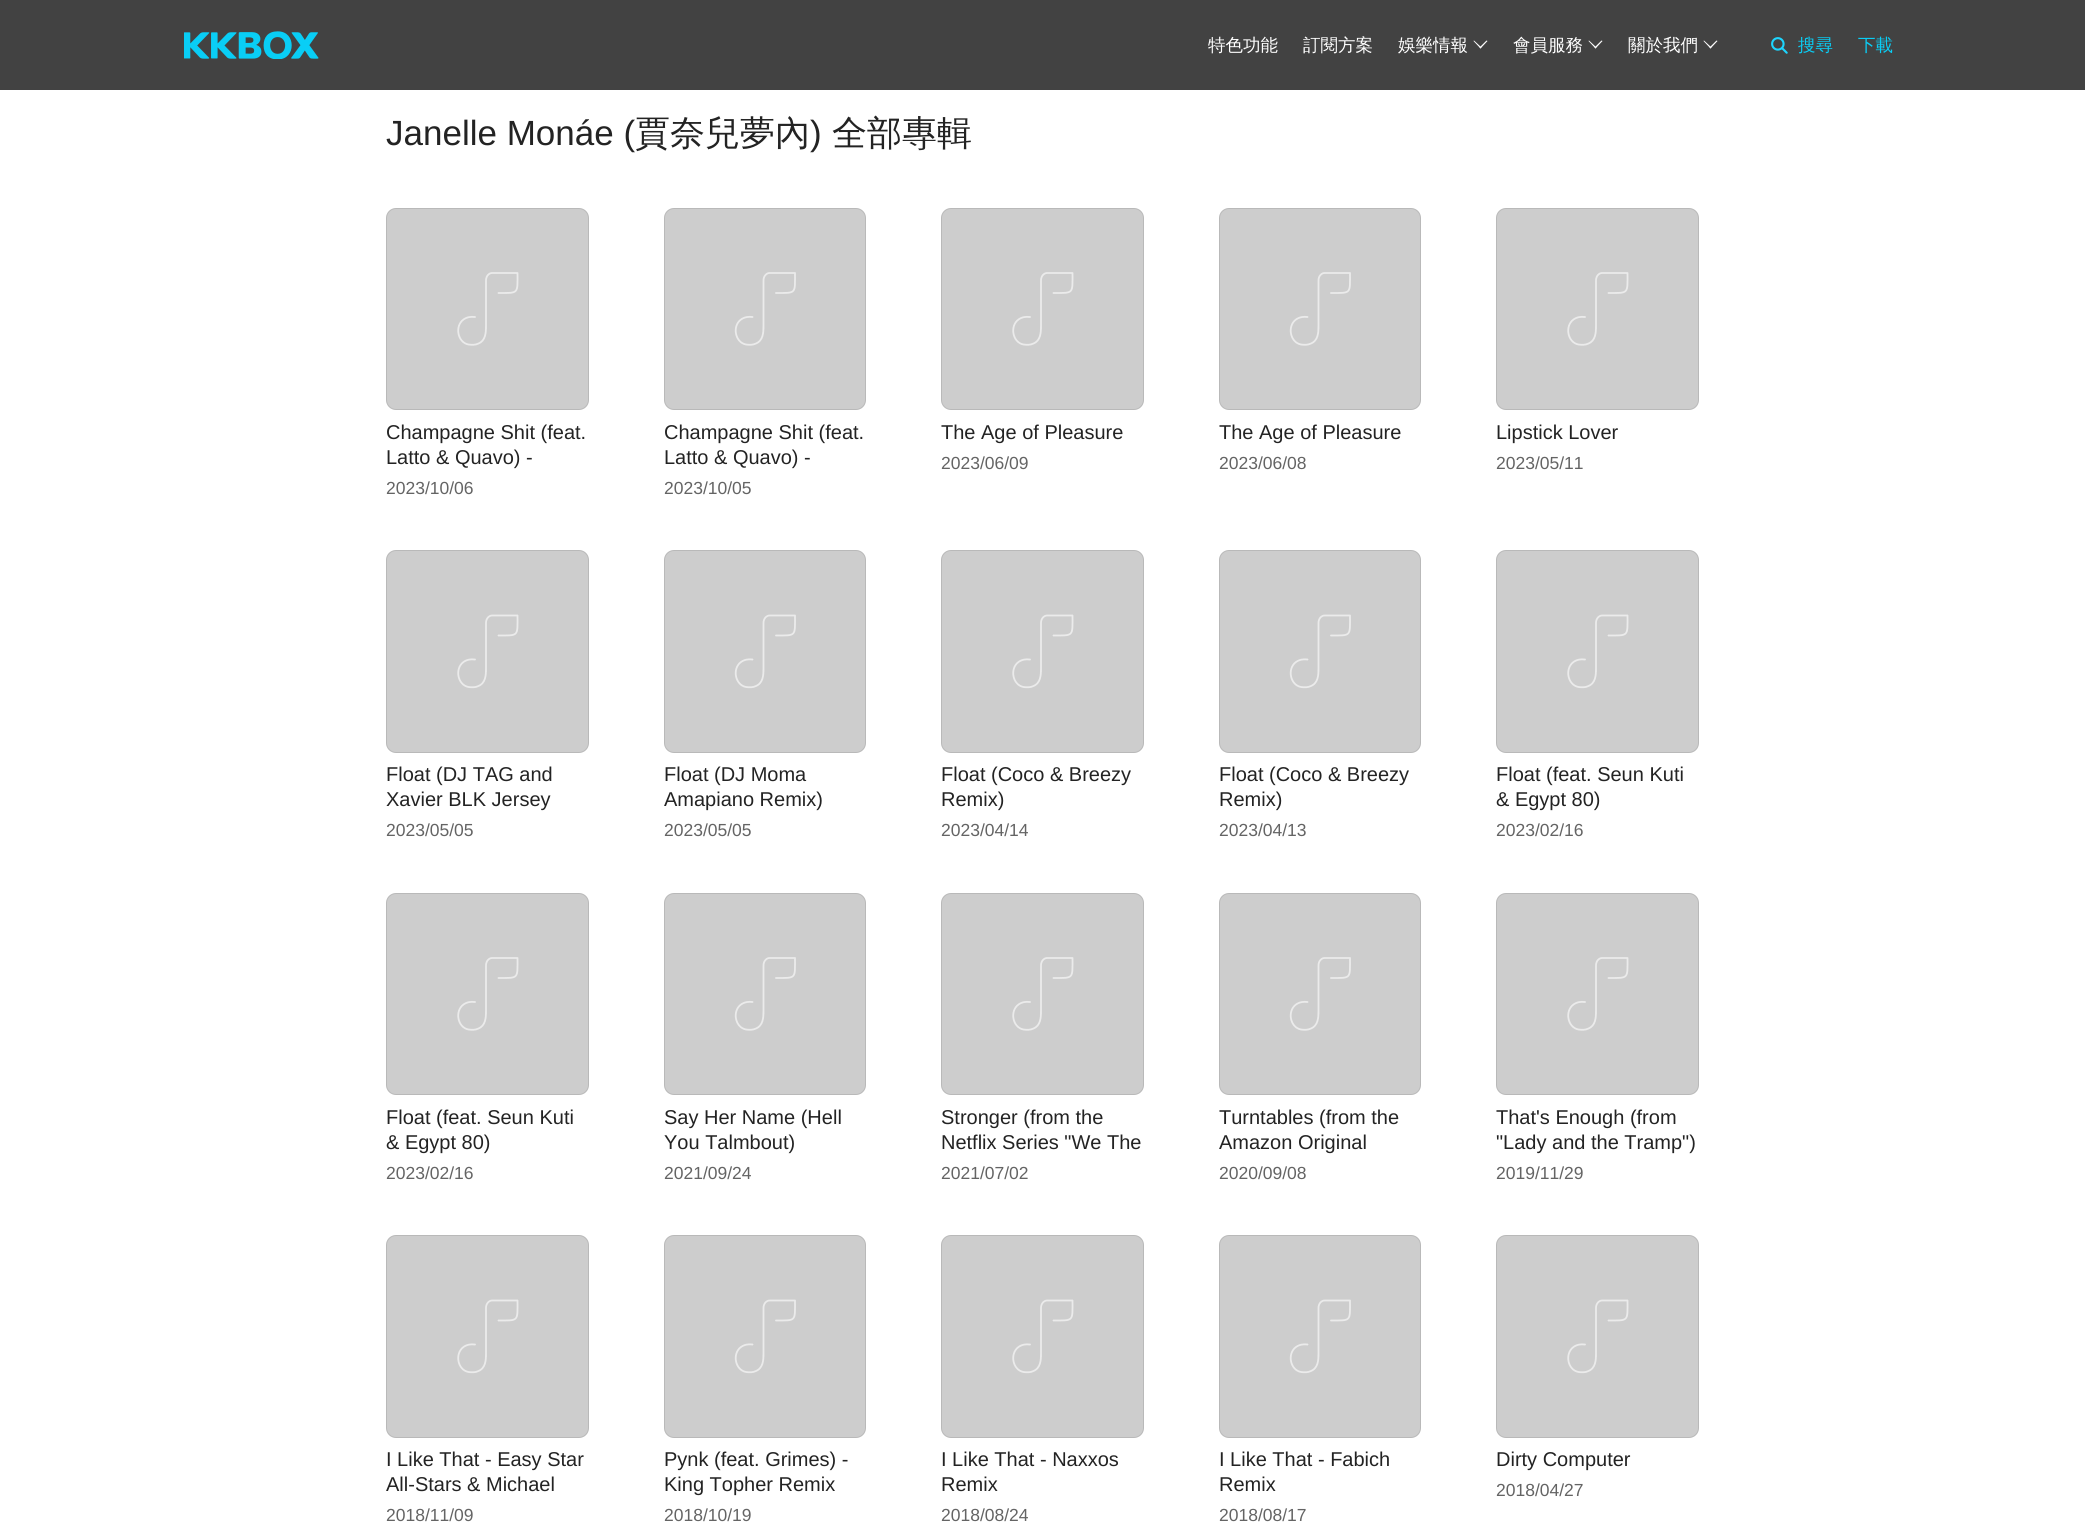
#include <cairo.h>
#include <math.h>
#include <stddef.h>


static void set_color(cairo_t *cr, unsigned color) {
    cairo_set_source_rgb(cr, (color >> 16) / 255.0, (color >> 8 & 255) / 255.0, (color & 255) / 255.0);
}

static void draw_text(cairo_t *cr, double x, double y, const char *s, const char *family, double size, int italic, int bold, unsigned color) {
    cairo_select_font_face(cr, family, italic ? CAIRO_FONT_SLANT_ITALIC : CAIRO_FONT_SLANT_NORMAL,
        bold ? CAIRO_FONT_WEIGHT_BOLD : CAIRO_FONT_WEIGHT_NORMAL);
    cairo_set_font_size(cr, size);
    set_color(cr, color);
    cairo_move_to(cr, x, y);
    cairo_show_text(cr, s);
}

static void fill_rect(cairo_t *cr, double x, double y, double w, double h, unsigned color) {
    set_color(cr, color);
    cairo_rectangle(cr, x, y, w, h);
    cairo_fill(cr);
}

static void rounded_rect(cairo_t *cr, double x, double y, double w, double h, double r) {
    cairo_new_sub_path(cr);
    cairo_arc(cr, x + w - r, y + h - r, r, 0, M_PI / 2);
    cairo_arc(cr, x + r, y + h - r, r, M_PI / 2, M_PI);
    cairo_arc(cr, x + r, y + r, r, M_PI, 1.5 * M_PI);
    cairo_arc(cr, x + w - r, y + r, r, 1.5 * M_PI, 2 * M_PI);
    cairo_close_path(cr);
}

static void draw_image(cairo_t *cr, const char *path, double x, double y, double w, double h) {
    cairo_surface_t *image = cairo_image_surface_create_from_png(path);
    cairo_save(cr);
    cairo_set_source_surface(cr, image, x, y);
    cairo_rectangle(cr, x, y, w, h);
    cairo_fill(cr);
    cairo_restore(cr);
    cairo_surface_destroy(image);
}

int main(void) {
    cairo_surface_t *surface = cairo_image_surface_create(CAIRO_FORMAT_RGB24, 2085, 1526);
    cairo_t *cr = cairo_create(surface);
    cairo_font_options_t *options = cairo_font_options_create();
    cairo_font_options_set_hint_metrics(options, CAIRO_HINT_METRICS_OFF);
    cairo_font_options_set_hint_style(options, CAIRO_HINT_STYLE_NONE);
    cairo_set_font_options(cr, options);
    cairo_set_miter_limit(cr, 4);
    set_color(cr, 0xFFFFFF);
    cairo_paint(cr);
    fill_rect(cr, 0, 0, 2085, 90, 0x424242);
    draw_image(cr, "assets/img1.png", 184, 31, 135, 28);
    draw_text(cr, 1208, 51, "特色功能", "WenQuanYi Zen Hei Medium", 17.5, 0, 0, 0xFFFFFF);
    draw_text(cr, 1303, 51, "訂閱方案", "WenQuanYi Zen Hei Medium", 17.5, 0, 0, 0xFFFFFF);
    draw_text(cr, 1398, 51, "娛樂情報", "WenQuanYi Zen Hei Medium", 17.5, 0, 0, 0xFFFFFF);
    cairo_new_path(cr);
    cairo_move_to(cr, 1486.5, 40.5);
    cairo_line_to(cr, 1487.5, 41);
    cairo_line_to(cr, 1480.5, 48.5);
    cairo_line_to(cr, 1479.5, 47.5);
    cairo_close_path(cr);
    cairo_fill(cr);
    cairo_new_path(cr);
    cairo_move_to(cr, 1474, 40.5);
    cairo_line_to(cr, 1481.5, 47.5);
    cairo_line_to(cr, 1480.5, 48.5);
    cairo_line_to(cr, 1473.5, 41);
    cairo_close_path(cr);
    cairo_fill(cr);
    draw_text(cr, 1513, 51, "會員服務", "WenQuanYi Zen Hei Medium", 17.5, 0, 0, 0xFFFFFF);
    cairo_new_path(cr);
    cairo_move_to(cr, 1601.5, 40.5);
    cairo_line_to(cr, 1602.5, 41);
    cairo_line_to(cr, 1595.5, 48.5);
    cairo_line_to(cr, 1594.5, 47.5);
    cairo_close_path(cr);
    cairo_fill(cr);
    cairo_new_path(cr);
    cairo_move_to(cr, 1589, 40.5);
    cairo_line_to(cr, 1596.5, 47.5);
    cairo_line_to(cr, 1595.5, 48.5);
    cairo_line_to(cr, 1588.5, 41);
    cairo_close_path(cr);
    cairo_fill(cr);
    draw_text(cr, 1628, 51, "關於我們", "WenQuanYi Zen Hei Medium", 17.5, 0, 0, 0xFFFFFF);
    cairo_new_path(cr);
    cairo_move_to(cr, 1716.5, 40.5);
    cairo_line_to(cr, 1717.5, 41);
    cairo_line_to(cr, 1710.5, 48.5);
    cairo_line_to(cr, 1709.5, 47.5);
    cairo_close_path(cr);
    cairo_fill(cr);
    cairo_new_path(cr);
    cairo_move_to(cr, 1704, 40.5);
    cairo_line_to(cr, 1711.5, 47.5);
    cairo_line_to(cr, 1710.5, 48.5);
    cairo_line_to(cr, 1703.5, 41);
    cairo_close_path(cr);
    cairo_fill(cr);
    draw_image(cr, "assets/img2.png", 1771, 37, 17, 17);
    draw_text(cr, 1798, 51, "搜尋", "WenQuanYi Zen Hei Medium", 17.5, 0, 0, 0x09CEF6);
    draw_text(cr, 1858, 51, "下載", "WenQuanYi Zen Hei Medium", 17.5, 0, 0, 0x09CEF6);
    draw_text(cr, 386, 145, "Janelle Monáe (", "Liberation Sans", 35, 0, 0, 0x232323);
    draw_text(cr, 635, 145, "賈奈兒夢內", "WenQuanYi Zen Hei Medium", 35, 0, 0, 0x232323);
    draw_text(cr, 810, 145, ")", "Liberation Sans", 35, 0, 0, 0x232323);
    draw_text(cr, 832, 145, "全部專輯", "WenQuanYi Zen Hei Medium", 35, 0, 0, 0x232323);
    set_color(cr, 0xCDCDCD);
    rounded_rect(cr, 386, 208, 203, 202, 10);
    cairo_fill(cr);
    cairo_new_path(cr);
    cairo_move_to(cr, 475, 317);
    cairo_curve_to(cr, 471, 316.5, 467, 317, 463.5, 319.5);
    cairo_curve_to(cr, 454.5, 326, 457.5, 342.5, 468.5, 344.5);
    cairo_curve_to(cr, 472, 345, 475.5, 345, 478.5, 343.5);
    cairo_curve_to(cr, 485.5, 340.5, 486, 333, 486, 326);
    cairo_line_to(cr, 486, 329);
    cairo_line_to(cr, 486, 280.5);
    cairo_curve_to(cr, 486, 275.5, 489.5, 273, 492, 273);
    cairo_line_to(cr, 517.5, 273);
    cairo_curve_to(cr, 517.5, 294, 519, 293, 498.5, 293);
    set_color(cr, 0xEBEBEB);
    cairo_set_line_width(cr, 1.8);
    cairo_set_line_cap(cr, CAIRO_LINE_CAP_ROUND);
    cairo_set_line_join(cr, CAIRO_LINE_JOIN_ROUND);
    cairo_stroke(cr);
    rounded_rect(cr, 386.5, 208.5, 202, 201, 9.5);
    cairo_set_source_rgba(cr, 0, 0, 0, 0.1);
    cairo_set_line_width(cr, 1);
    cairo_set_line_cap(cr, CAIRO_LINE_CAP_BUTT);
    cairo_set_line_join(cr, CAIRO_LINE_JOIN_MITER);
    cairo_stroke(cr);
    draw_text(cr, 386, 439, "Champagne Shit (feat.", "Liberation Sans", 20, 0, 0, 0x232323);
    draw_text(cr, 386, 464, "Latto & Quavo) -", "Liberation Sans", 20, 0, 0, 0x232323);
    draw_text(cr, 386, 494, "2023/10/06", "Liberation Sans", 17.5, 0, 0, 0x646464);
    set_color(cr, 0xCDCDCD);
    rounded_rect(cr, 664, 208, 202, 202, 10);
    cairo_fill(cr);
    cairo_new_path(cr);
    cairo_move_to(cr, 752.5, 317);
    cairo_curve_to(cr, 748.5, 316.5, 744.5, 317, 741, 319.5);
    cairo_curve_to(cr, 732, 326, 735, 342.5, 746, 344.5);
    cairo_curve_to(cr, 749.5, 345, 753, 345, 756, 343.5);
    cairo_curve_to(cr, 763, 340.5, 763.5, 333, 763.5, 326);
    cairo_line_to(cr, 763.5, 329);
    cairo_line_to(cr, 763.5, 280.5);
    cairo_curve_to(cr, 763.5, 275.5, 767, 273, 769.5, 273);
    cairo_line_to(cr, 795, 273);
    cairo_curve_to(cr, 795, 294, 796.5, 293, 776, 293);
    set_color(cr, 0xEBEBEB);
    cairo_set_line_width(cr, 1.8);
    cairo_set_line_cap(cr, CAIRO_LINE_CAP_ROUND);
    cairo_set_line_join(cr, CAIRO_LINE_JOIN_ROUND);
    cairo_stroke(cr);
    rounded_rect(cr, 664.5, 208.5, 201, 201, 9.5);
    cairo_set_source_rgba(cr, 0, 0, 0, 0.1);
    cairo_set_line_width(cr, 1);
    cairo_set_line_cap(cr, CAIRO_LINE_CAP_BUTT);
    cairo_set_line_join(cr, CAIRO_LINE_JOIN_MITER);
    cairo_stroke(cr);
    draw_text(cr, 664, 439, "Champagne Shit (feat.", "Liberation Sans", 20, 0, 0, 0x232323);
    draw_text(cr, 664, 464, "Latto & Quavo) -", "Liberation Sans", 20, 0, 0, 0x232323);
    draw_text(cr, 664, 494, "2023/10/05", "Liberation Sans", 17.5, 0, 0, 0x646464);
    set_color(cr, 0xCDCDCD);
    rounded_rect(cr, 941, 208, 203, 202, 10);
    cairo_fill(cr);
    cairo_new_path(cr);
    cairo_move_to(cr, 1030, 317);
    cairo_curve_to(cr, 1026, 316.5, 1022, 317, 1018.5, 319.5);
    cairo_curve_to(cr, 1009.5, 326, 1012.5, 342.5, 1023.5, 344.5);
    cairo_curve_to(cr, 1027, 345, 1030.5, 345, 1033.5, 343.5);
    cairo_curve_to(cr, 1040.5, 340.5, 1041, 333, 1041, 326);
    cairo_line_to(cr, 1041, 329);
    cairo_line_to(cr, 1041, 280.5);
    cairo_curve_to(cr, 1041, 275.5, 1044.5, 273, 1047, 273);
    cairo_line_to(cr, 1072.5, 273);
    cairo_curve_to(cr, 1072.5, 294, 1074, 293, 1053.5, 293);
    set_color(cr, 0xEBEBEB);
    cairo_set_line_width(cr, 1.8);
    cairo_set_line_cap(cr, CAIRO_LINE_CAP_ROUND);
    cairo_set_line_join(cr, CAIRO_LINE_JOIN_ROUND);
    cairo_stroke(cr);
    rounded_rect(cr, 941.5, 208.5, 202, 201, 9.5);
    cairo_set_source_rgba(cr, 0, 0, 0, 0.1);
    cairo_set_line_width(cr, 1);
    cairo_set_line_cap(cr, CAIRO_LINE_CAP_BUTT);
    cairo_set_line_join(cr, CAIRO_LINE_JOIN_MITER);
    cairo_stroke(cr);
    draw_text(cr, 941, 439, "The Age of Pleasure", "Liberation Sans", 20, 0, 0, 0x232323);
    draw_text(cr, 941, 469, "2023/06/09", "Liberation Sans", 17.5, 0, 0, 0x646464);
    set_color(cr, 0xCDCDCD);
    rounded_rect(cr, 1219, 208, 202, 202, 10);
    cairo_fill(cr);
    cairo_new_path(cr);
    cairo_move_to(cr, 1307.5, 317);
    cairo_curve_to(cr, 1303.5, 316.5, 1299.5, 317, 1296, 319.5);
    cairo_curve_to(cr, 1287, 326, 1290, 342.5, 1301, 344.5);
    cairo_curve_to(cr, 1304.5, 345, 1308, 345, 1311, 343.5);
    cairo_curve_to(cr, 1318, 340.5, 1318.5, 333, 1318.5, 326);
    cairo_line_to(cr, 1318.5, 329);
    cairo_line_to(cr, 1318.5, 280.5);
    cairo_curve_to(cr, 1318.5, 275.5, 1322, 273, 1324.5, 273);
    cairo_line_to(cr, 1350, 273);
    cairo_curve_to(cr, 1350, 294, 1351.5, 293, 1331, 293);
    set_color(cr, 0xEBEBEB);
    cairo_set_line_width(cr, 1.8);
    cairo_set_line_cap(cr, CAIRO_LINE_CAP_ROUND);
    cairo_set_line_join(cr, CAIRO_LINE_JOIN_ROUND);
    cairo_stroke(cr);
    rounded_rect(cr, 1219.5, 208.5, 201, 201, 9.5);
    cairo_set_source_rgba(cr, 0, 0, 0, 0.1);
    cairo_set_line_width(cr, 1);
    cairo_set_line_cap(cr, CAIRO_LINE_CAP_BUTT);
    cairo_set_line_join(cr, CAIRO_LINE_JOIN_MITER);
    cairo_stroke(cr);
    draw_text(cr, 1219, 439, "The Age of Pleasure", "Liberation Sans", 20, 0, 0, 0x232323);
    draw_text(cr, 1219, 469, "2023/06/08", "Liberation Sans", 17.5, 0, 0, 0x646464);
    set_color(cr, 0xCDCDCD);
    rounded_rect(cr, 1496, 208, 203, 202, 10);
    cairo_fill(cr);
    cairo_new_path(cr);
    cairo_move_to(cr, 1585, 317);
    cairo_curve_to(cr, 1581, 316.5, 1577, 317, 1573.5, 319.5);
    cairo_curve_to(cr, 1564.5, 326, 1567.5, 342.5, 1578.5, 344.5);
    cairo_curve_to(cr, 1582, 345, 1585.5, 345, 1588.5, 343.5);
    cairo_curve_to(cr, 1595.5, 340.5, 1596, 333, 1596, 326);
    cairo_line_to(cr, 1596, 329);
    cairo_line_to(cr, 1596, 280.5);
    cairo_curve_to(cr, 1596, 275.5, 1599.5, 273, 1602, 273);
    cairo_line_to(cr, 1627.5, 273);
    cairo_curve_to(cr, 1627.5, 294, 1629, 293, 1608.5, 293);
    set_color(cr, 0xEBEBEB);
    cairo_set_line_width(cr, 1.8);
    cairo_set_line_cap(cr, CAIRO_LINE_CAP_ROUND);
    cairo_set_line_join(cr, CAIRO_LINE_JOIN_ROUND);
    cairo_stroke(cr);
    rounded_rect(cr, 1496.5, 208.5, 202, 201, 9.5);
    cairo_set_source_rgba(cr, 0, 0, 0, 0.1);
    cairo_set_line_width(cr, 1);
    cairo_set_line_cap(cr, CAIRO_LINE_CAP_BUTT);
    cairo_set_line_join(cr, CAIRO_LINE_JOIN_MITER);
    cairo_stroke(cr);
    draw_text(cr, 1496, 439, "Lipstick Lover", "Liberation Sans", 20, 0, 0, 0x232323);
    draw_text(cr, 1496, 469, "2023/05/11", "Liberation Sans", 17.5, 0, 0, 0x646464);
    set_color(cr, 0xCDCDCD);
    rounded_rect(cr, 386, 550, 203, 203, 10);
    cairo_fill(cr);
    cairo_new_path(cr);
    cairo_move_to(cr, 475, 659.5);
    cairo_curve_to(cr, 471, 659, 467, 659.5, 463.5, 662);
    cairo_curve_to(cr, 454.5, 668.5, 457.5, 685, 468.5, 687);
    cairo_curve_to(cr, 472, 687.5, 475.5, 687.5, 478.5, 686);
    cairo_curve_to(cr, 485.5, 683, 486, 675.5, 486, 668.5);
    cairo_line_to(cr, 486, 671.5);
    cairo_line_to(cr, 486, 623);
    cairo_curve_to(cr, 486, 618, 489.5, 615.5, 492, 615.5);
    cairo_line_to(cr, 517.5, 615.5);
    cairo_curve_to(cr, 517.5, 636.5, 519, 635.5, 498.5, 635.5);
    set_color(cr, 0xEBEBEB);
    cairo_set_line_width(cr, 1.8);
    cairo_set_line_cap(cr, CAIRO_LINE_CAP_ROUND);
    cairo_set_line_join(cr, CAIRO_LINE_JOIN_ROUND);
    cairo_stroke(cr);
    rounded_rect(cr, 386.5, 550.5, 202, 202, 9.5);
    cairo_set_source_rgba(cr, 0, 0, 0, 0.1);
    cairo_set_line_width(cr, 1);
    cairo_set_line_cap(cr, CAIRO_LINE_CAP_BUTT);
    cairo_set_line_join(cr, CAIRO_LINE_JOIN_MITER);
    cairo_stroke(cr);
    draw_text(cr, 386, 781, "Float (DJ TAG and", "Liberation Sans", 20, 0, 0, 0x232323);
    draw_text(cr, 386, 806, "Xavier BLK Jersey", "Liberation Sans", 20, 0, 0, 0x232323);
    draw_text(cr, 386, 836, "2023/05/05", "Liberation Sans", 17.5, 0, 0, 0x646464);
    set_color(cr, 0xCDCDCD);
    rounded_rect(cr, 664, 550, 202, 203, 10);
    cairo_fill(cr);
    cairo_new_path(cr);
    cairo_move_to(cr, 752.5, 659.5);
    cairo_curve_to(cr, 748.5, 659, 744.5, 659.5, 741, 662);
    cairo_curve_to(cr, 732, 668.5, 735, 685, 746, 687);
    cairo_curve_to(cr, 749.5, 687.5, 753, 687.5, 756, 686);
    cairo_curve_to(cr, 763, 683, 763.5, 675.5, 763.5, 668.5);
    cairo_line_to(cr, 763.5, 671.5);
    cairo_line_to(cr, 763.5, 623);
    cairo_curve_to(cr, 763.5, 618, 767, 615.5, 769.5, 615.5);
    cairo_line_to(cr, 795, 615.5);
    cairo_curve_to(cr, 795, 636.5, 796.5, 635.5, 776, 635.5);
    set_color(cr, 0xEBEBEB);
    cairo_set_line_width(cr, 1.8);
    cairo_set_line_cap(cr, CAIRO_LINE_CAP_ROUND);
    cairo_set_line_join(cr, CAIRO_LINE_JOIN_ROUND);
    cairo_stroke(cr);
    rounded_rect(cr, 664.5, 550.5, 201, 202, 9.5);
    cairo_set_source_rgba(cr, 0, 0, 0, 0.1);
    cairo_set_line_width(cr, 1);
    cairo_set_line_cap(cr, CAIRO_LINE_CAP_BUTT);
    cairo_set_line_join(cr, CAIRO_LINE_JOIN_MITER);
    cairo_stroke(cr);
    draw_text(cr, 664, 781, "Float (DJ Moma", "Liberation Sans", 20, 0, 0, 0x232323);
    draw_text(cr, 664, 806, "Amapiano Remix)", "Liberation Sans", 20, 0, 0, 0x232323);
    draw_text(cr, 664, 836, "2023/05/05", "Liberation Sans", 17.5, 0, 0, 0x646464);
    set_color(cr, 0xCDCDCD);
    rounded_rect(cr, 941, 550, 203, 203, 10);
    cairo_fill(cr);
    cairo_new_path(cr);
    cairo_move_to(cr, 1030, 659.5);
    cairo_curve_to(cr, 1026, 659, 1022, 659.5, 1018.5, 662);
    cairo_curve_to(cr, 1009.5, 668.5, 1012.5, 685, 1023.5, 687);
    cairo_curve_to(cr, 1027, 687.5, 1030.5, 687.5, 1033.5, 686);
    cairo_curve_to(cr, 1040.5, 683, 1041, 675.5, 1041, 668.5);
    cairo_line_to(cr, 1041, 671.5);
    cairo_line_to(cr, 1041, 623);
    cairo_curve_to(cr, 1041, 618, 1044.5, 615.5, 1047, 615.5);
    cairo_line_to(cr, 1072.5, 615.5);
    cairo_curve_to(cr, 1072.5, 636.5, 1074, 635.5, 1053.5, 635.5);
    set_color(cr, 0xEBEBEB);
    cairo_set_line_width(cr, 1.8);
    cairo_set_line_cap(cr, CAIRO_LINE_CAP_ROUND);
    cairo_set_line_join(cr, CAIRO_LINE_JOIN_ROUND);
    cairo_stroke(cr);
    rounded_rect(cr, 941.5, 550.5, 202, 202, 9.5);
    cairo_set_source_rgba(cr, 0, 0, 0, 0.1);
    cairo_set_line_width(cr, 1);
    cairo_set_line_cap(cr, CAIRO_LINE_CAP_BUTT);
    cairo_set_line_join(cr, CAIRO_LINE_JOIN_MITER);
    cairo_stroke(cr);
    draw_text(cr, 941, 781, "Float (Coco & Breezy", "Liberation Sans", 20, 0, 0, 0x232323);
    draw_text(cr, 941, 806, "Remix)", "Liberation Sans", 20, 0, 0, 0x232323);
    draw_text(cr, 941, 836, "2023/04/14", "Liberation Sans", 17.5, 0, 0, 0x646464);
    set_color(cr, 0xCDCDCD);
    rounded_rect(cr, 1219, 550, 202, 203, 10);
    cairo_fill(cr);
    cairo_new_path(cr);
    cairo_move_to(cr, 1307.5, 659.5);
    cairo_curve_to(cr, 1303.5, 659, 1299.5, 659.5, 1296, 662);
    cairo_curve_to(cr, 1287, 668.5, 1290, 685, 1301, 687);
    cairo_curve_to(cr, 1304.5, 687.5, 1308, 687.5, 1311, 686);
    cairo_curve_to(cr, 1318, 683, 1318.5, 675.5, 1318.5, 668.5);
    cairo_line_to(cr, 1318.5, 671.5);
    cairo_line_to(cr, 1318.5, 623);
    cairo_curve_to(cr, 1318.5, 618, 1322, 615.5, 1324.5, 615.5);
    cairo_line_to(cr, 1350, 615.5);
    cairo_curve_to(cr, 1350, 636.5, 1351.5, 635.5, 1331, 635.5);
    set_color(cr, 0xEBEBEB);
    cairo_set_line_width(cr, 1.8);
    cairo_set_line_cap(cr, CAIRO_LINE_CAP_ROUND);
    cairo_set_line_join(cr, CAIRO_LINE_JOIN_ROUND);
    cairo_stroke(cr);
    rounded_rect(cr, 1219.5, 550.5, 201, 202, 9.5);
    cairo_set_source_rgba(cr, 0, 0, 0, 0.1);
    cairo_set_line_width(cr, 1);
    cairo_set_line_cap(cr, CAIRO_LINE_CAP_BUTT);
    cairo_set_line_join(cr, CAIRO_LINE_JOIN_MITER);
    cairo_stroke(cr);
    draw_text(cr, 1219, 781, "Float (Coco & Breezy", "Liberation Sans", 20, 0, 0, 0x232323);
    draw_text(cr, 1219, 806, "Remix)", "Liberation Sans", 20, 0, 0, 0x232323);
    draw_text(cr, 1219, 836, "2023/04/13", "Liberation Sans", 17.5, 0, 0, 0x646464);
    set_color(cr, 0xCDCDCD);
    rounded_rect(cr, 1496, 550, 203, 203, 10);
    cairo_fill(cr);
    cairo_new_path(cr);
    cairo_move_to(cr, 1585, 659.5);
    cairo_curve_to(cr, 1581, 659, 1577, 659.5, 1573.5, 662);
    cairo_curve_to(cr, 1564.5, 668.5, 1567.5, 685, 1578.5, 687);
    cairo_curve_to(cr, 1582, 687.5, 1585.5, 687.5, 1588.5, 686);
    cairo_curve_to(cr, 1595.5, 683, 1596, 675.5, 1596, 668.5);
    cairo_line_to(cr, 1596, 671.5);
    cairo_line_to(cr, 1596, 623);
    cairo_curve_to(cr, 1596, 618, 1599.5, 615.5, 1602, 615.5);
    cairo_line_to(cr, 1627.5, 615.5);
    cairo_curve_to(cr, 1627.5, 636.5, 1629, 635.5, 1608.5, 635.5);
    set_color(cr, 0xEBEBEB);
    cairo_set_line_width(cr, 1.8);
    cairo_set_line_cap(cr, CAIRO_LINE_CAP_ROUND);
    cairo_set_line_join(cr, CAIRO_LINE_JOIN_ROUND);
    cairo_stroke(cr);
    rounded_rect(cr, 1496.5, 550.5, 202, 202, 9.5);
    cairo_set_source_rgba(cr, 0, 0, 0, 0.1);
    cairo_set_line_width(cr, 1);
    cairo_set_line_cap(cr, CAIRO_LINE_CAP_BUTT);
    cairo_set_line_join(cr, CAIRO_LINE_JOIN_MITER);
    cairo_stroke(cr);
    draw_text(cr, 1496, 781, "Float (feat. Seun Kuti", "Liberation Sans", 20, 0, 0, 0x232323);
    draw_text(cr, 1496, 806, "& Egypt 80)", "Liberation Sans", 20, 0, 0, 0x232323);
    draw_text(cr, 1496, 836, "2023/02/16", "Liberation Sans", 17.5, 0, 0, 0x646464);
    set_color(cr, 0xCDCDCD);
    rounded_rect(cr, 386, 893, 203, 202, 10);
    cairo_fill(cr);
    cairo_new_path(cr);
    cairo_move_to(cr, 475, 1002);
    cairo_curve_to(cr, 471, 1001.5, 467, 1002, 463.5, 1004.5);
    cairo_curve_to(cr, 454.5, 1011, 457.5, 1027.5, 468.5, 1029.5);
    cairo_curve_to(cr, 472, 1030, 475.5, 1030, 478.5, 1028.5);
    cairo_curve_to(cr, 485.5, 1025.5, 486, 1018, 486, 1011);
    cairo_line_to(cr, 486, 1014);
    cairo_line_to(cr, 486, 965.5);
    cairo_curve_to(cr, 486, 960.5, 489.5, 958, 492, 958);
    cairo_line_to(cr, 517.5, 958);
    cairo_curve_to(cr, 517.5, 979, 519, 978, 498.5, 978);
    set_color(cr, 0xEBEBEB);
    cairo_set_line_width(cr, 1.8);
    cairo_set_line_cap(cr, CAIRO_LINE_CAP_ROUND);
    cairo_set_line_join(cr, CAIRO_LINE_JOIN_ROUND);
    cairo_stroke(cr);
    rounded_rect(cr, 386.5, 893.5, 202, 201, 9.5);
    cairo_set_source_rgba(cr, 0, 0, 0, 0.1);
    cairo_set_line_width(cr, 1);
    cairo_set_line_cap(cr, CAIRO_LINE_CAP_BUTT);
    cairo_set_line_join(cr, CAIRO_LINE_JOIN_MITER);
    cairo_stroke(cr);
    draw_text(cr, 386, 1124, "Float (feat. Seun Kuti", "Liberation Sans", 20, 0, 0, 0x232323);
    draw_text(cr, 386, 1149, "& Egypt 80)", "Liberation Sans", 20, 0, 0, 0x232323);
    draw_text(cr, 386, 1179, "2023/02/16", "Liberation Sans", 17.5, 0, 0, 0x646464);
    set_color(cr, 0xCDCDCD);
    rounded_rect(cr, 664, 893, 202, 202, 10);
    cairo_fill(cr);
    cairo_new_path(cr);
    cairo_move_to(cr, 752.5, 1002);
    cairo_curve_to(cr, 748.5, 1001.5, 744.5, 1002, 741, 1004.5);
    cairo_curve_to(cr, 732, 1011, 735, 1027.5, 746, 1029.5);
    cairo_curve_to(cr, 749.5, 1030, 753, 1030, 756, 1028.5);
    cairo_curve_to(cr, 763, 1025.5, 763.5, 1018, 763.5, 1011);
    cairo_line_to(cr, 763.5, 1014);
    cairo_line_to(cr, 763.5, 965.5);
    cairo_curve_to(cr, 763.5, 960.5, 767, 958, 769.5, 958);
    cairo_line_to(cr, 795, 958);
    cairo_curve_to(cr, 795, 979, 796.5, 978, 776, 978);
    set_color(cr, 0xEBEBEB);
    cairo_set_line_width(cr, 1.8);
    cairo_set_line_cap(cr, CAIRO_LINE_CAP_ROUND);
    cairo_set_line_join(cr, CAIRO_LINE_JOIN_ROUND);
    cairo_stroke(cr);
    rounded_rect(cr, 664.5, 893.5, 201, 201, 9.5);
    cairo_set_source_rgba(cr, 0, 0, 0, 0.1);
    cairo_set_line_width(cr, 1);
    cairo_set_line_cap(cr, CAIRO_LINE_CAP_BUTT);
    cairo_set_line_join(cr, CAIRO_LINE_JOIN_MITER);
    cairo_stroke(cr);
    draw_text(cr, 664, 1124, "Say Her Name (Hell", "Liberation Sans", 20, 0, 0, 0x232323);
    draw_text(cr, 664, 1149, "You Talmbout)", "Liberation Sans", 20, 0, 0, 0x232323);
    draw_text(cr, 664, 1179, "2021/09/24", "Liberation Sans", 17.5, 0, 0, 0x646464);
    set_color(cr, 0xCDCDCD);
    rounded_rect(cr, 941, 893, 203, 202, 10);
    cairo_fill(cr);
    cairo_new_path(cr);
    cairo_move_to(cr, 1030, 1002);
    cairo_curve_to(cr, 1026, 1001.5, 1022, 1002, 1018.5, 1004.5);
    cairo_curve_to(cr, 1009.5, 1011, 1012.5, 1027.5, 1023.5, 1029.5);
    cairo_curve_to(cr, 1027, 1030, 1030.5, 1030, 1033.5, 1028.5);
    cairo_curve_to(cr, 1040.5, 1025.5, 1041, 1018, 1041, 1011);
    cairo_line_to(cr, 1041, 1014);
    cairo_line_to(cr, 1041, 965.5);
    cairo_curve_to(cr, 1041, 960.5, 1044.5, 958, 1047, 958);
    cairo_line_to(cr, 1072.5, 958);
    cairo_curve_to(cr, 1072.5, 979, 1074, 978, 1053.5, 978);
    set_color(cr, 0xEBEBEB);
    cairo_set_line_width(cr, 1.8);
    cairo_set_line_cap(cr, CAIRO_LINE_CAP_ROUND);
    cairo_set_line_join(cr, CAIRO_LINE_JOIN_ROUND);
    cairo_stroke(cr);
    rounded_rect(cr, 941.5, 893.5, 202, 201, 9.5);
    cairo_set_source_rgba(cr, 0, 0, 0, 0.1);
    cairo_set_line_width(cr, 1);
    cairo_set_line_cap(cr, CAIRO_LINE_CAP_BUTT);
    cairo_set_line_join(cr, CAIRO_LINE_JOIN_MITER);
    cairo_stroke(cr);
    draw_text(cr, 941, 1124, "Stronger (from the", "Liberation Sans", 20, 0, 0, 0x232323);
    draw_text(cr, 941, 1149, "Netflix Series \"We The", "Liberation Sans", 20, 0, 0, 0x232323);
    draw_text(cr, 941, 1179, "2021/07/02", "Liberation Sans", 17.5, 0, 0, 0x646464);
    set_color(cr, 0xCDCDCD);
    rounded_rect(cr, 1219, 893, 202, 202, 10);
    cairo_fill(cr);
    cairo_new_path(cr);
    cairo_move_to(cr, 1307.5, 1002);
    cairo_curve_to(cr, 1303.5, 1001.5, 1299.5, 1002, 1296, 1004.5);
    cairo_curve_to(cr, 1287, 1011, 1290, 1027.5, 1301, 1029.5);
    cairo_curve_to(cr, 1304.5, 1030, 1308, 1030, 1311, 1028.5);
    cairo_curve_to(cr, 1318, 1025.5, 1318.5, 1018, 1318.5, 1011);
    cairo_line_to(cr, 1318.5, 1014);
    cairo_line_to(cr, 1318.5, 965.5);
    cairo_curve_to(cr, 1318.5, 960.5, 1322, 958, 1324.5, 958);
    cairo_line_to(cr, 1350, 958);
    cairo_curve_to(cr, 1350, 979, 1351.5, 978, 1331, 978);
    set_color(cr, 0xEBEBEB);
    cairo_set_line_width(cr, 1.8);
    cairo_set_line_cap(cr, CAIRO_LINE_CAP_ROUND);
    cairo_set_line_join(cr, CAIRO_LINE_JOIN_ROUND);
    cairo_stroke(cr);
    rounded_rect(cr, 1219.5, 893.5, 201, 201, 9.5);
    cairo_set_source_rgba(cr, 0, 0, 0, 0.1);
    cairo_set_line_width(cr, 1);
    cairo_set_line_cap(cr, CAIRO_LINE_CAP_BUTT);
    cairo_set_line_join(cr, CAIRO_LINE_JOIN_MITER);
    cairo_stroke(cr);
    draw_text(cr, 1219, 1124, "Turntables (from the", "Liberation Sans", 20, 0, 0, 0x232323);
    draw_text(cr, 1219, 1149, "Amazon Original", "Liberation Sans", 20, 0, 0, 0x232323);
    draw_text(cr, 1219, 1179, "2020/09/08", "Liberation Sans", 17.5, 0, 0, 0x646464);
    set_color(cr, 0xCDCDCD);
    rounded_rect(cr, 1496, 893, 203, 202, 10);
    cairo_fill(cr);
    cairo_new_path(cr);
    cairo_move_to(cr, 1585, 1002);
    cairo_curve_to(cr, 1581, 1001.5, 1577, 1002, 1573.5, 1004.5);
    cairo_curve_to(cr, 1564.5, 1011, 1567.5, 1027.5, 1578.5, 1029.5);
    cairo_curve_to(cr, 1582, 1030, 1585.5, 1030, 1588.5, 1028.5);
    cairo_curve_to(cr, 1595.5, 1025.5, 1596, 1018, 1596, 1011);
    cairo_line_to(cr, 1596, 1014);
    cairo_line_to(cr, 1596, 965.5);
    cairo_curve_to(cr, 1596, 960.5, 1599.5, 958, 1602, 958);
    cairo_line_to(cr, 1627.5, 958);
    cairo_curve_to(cr, 1627.5, 979, 1629, 978, 1608.5, 978);
    set_color(cr, 0xEBEBEB);
    cairo_set_line_width(cr, 1.8);
    cairo_set_line_cap(cr, CAIRO_LINE_CAP_ROUND);
    cairo_set_line_join(cr, CAIRO_LINE_JOIN_ROUND);
    cairo_stroke(cr);
    rounded_rect(cr, 1496.5, 893.5, 202, 201, 9.5);
    cairo_set_source_rgba(cr, 0, 0, 0, 0.1);
    cairo_set_line_width(cr, 1);
    cairo_set_line_cap(cr, CAIRO_LINE_CAP_BUTT);
    cairo_set_line_join(cr, CAIRO_LINE_JOIN_MITER);
    cairo_stroke(cr);
    draw_text(cr, 1496, 1124, "That's Enough (from", "Liberation Sans", 20, 0, 0, 0x232323);
    draw_text(cr, 1496, 1149, "\"Lady and the Tramp\")", "Liberation Sans", 20, 0, 0, 0x232323);
    draw_text(cr, 1496, 1179, "2019/11/29", "Liberation Sans", 17.5, 0, 0, 0x646464);
    set_color(cr, 0xCDCDCD);
    rounded_rect(cr, 386, 1235, 203, 203, 10);
    cairo_fill(cr);
    cairo_new_path(cr);
    cairo_move_to(cr, 475, 1344.5);
    cairo_curve_to(cr, 471, 1344, 467, 1344.5, 463.5, 1347);
    cairo_curve_to(cr, 454.5, 1353.5, 457.5, 1370, 468.5, 1372);
    cairo_curve_to(cr, 472, 1372.5, 475.5, 1372.5, 478.5, 1371);
    cairo_curve_to(cr, 485.5, 1368, 486, 1360.5, 486, 1353.5);
    cairo_line_to(cr, 486, 1356.5);
    cairo_line_to(cr, 486, 1308);
    cairo_curve_to(cr, 486, 1303, 489.5, 1300.5, 492, 1300.5);
    cairo_line_to(cr, 517.5, 1300.5);
    cairo_curve_to(cr, 517.5, 1321.5, 519, 1320.5, 498.5, 1320.5);
    set_color(cr, 0xEBEBEB);
    cairo_set_line_width(cr, 1.8);
    cairo_set_line_cap(cr, CAIRO_LINE_CAP_ROUND);
    cairo_set_line_join(cr, CAIRO_LINE_JOIN_ROUND);
    cairo_stroke(cr);
    rounded_rect(cr, 386.5, 1235.5, 202, 202, 9.5);
    cairo_set_source_rgba(cr, 0, 0, 0, 0.1);
    cairo_set_line_width(cr, 1);
    cairo_set_line_cap(cr, CAIRO_LINE_CAP_BUTT);
    cairo_set_line_join(cr, CAIRO_LINE_JOIN_MITER);
    cairo_stroke(cr);
    draw_text(cr, 386, 1466, "I Like That - Easy Star", "Liberation Sans", 20, 0, 0, 0x232323);
    draw_text(cr, 386, 1491, "All-Stars & Michael", "Liberation Sans", 20, 0, 0, 0x232323);
    draw_text(cr, 386, 1521, "2018/11/09", "Liberation Sans", 17.5, 0, 0, 0x646464);
    set_color(cr, 0xCDCDCD);
    rounded_rect(cr, 664, 1235, 202, 203, 10);
    cairo_fill(cr);
    cairo_new_path(cr);
    cairo_move_to(cr, 752.5, 1344.5);
    cairo_curve_to(cr, 748.5, 1344, 744.5, 1344.5, 741, 1347);
    cairo_curve_to(cr, 732, 1353.5, 735, 1370, 746, 1372);
    cairo_curve_to(cr, 749.5, 1372.5, 753, 1372.5, 756, 1371);
    cairo_curve_to(cr, 763, 1368, 763.5, 1360.5, 763.5, 1353.5);
    cairo_line_to(cr, 763.5, 1356.5);
    cairo_line_to(cr, 763.5, 1308);
    cairo_curve_to(cr, 763.5, 1303, 767, 1300.5, 769.5, 1300.5);
    cairo_line_to(cr, 795, 1300.5);
    cairo_curve_to(cr, 795, 1321.5, 796.5, 1320.5, 776, 1320.5);
    set_color(cr, 0xEBEBEB);
    cairo_set_line_width(cr, 1.8);
    cairo_set_line_cap(cr, CAIRO_LINE_CAP_ROUND);
    cairo_set_line_join(cr, CAIRO_LINE_JOIN_ROUND);
    cairo_stroke(cr);
    rounded_rect(cr, 664.5, 1235.5, 201, 202, 9.5);
    cairo_set_source_rgba(cr, 0, 0, 0, 0.1);
    cairo_set_line_width(cr, 1);
    cairo_set_line_cap(cr, CAIRO_LINE_CAP_BUTT);
    cairo_set_line_join(cr, CAIRO_LINE_JOIN_MITER);
    cairo_stroke(cr);
    draw_text(cr, 664, 1466, "Pynk (feat. Grimes) -", "Liberation Sans", 20, 0, 0, 0x232323);
    draw_text(cr, 664, 1491, "King Topher Remix", "Liberation Sans", 20, 0, 0, 0x232323);
    draw_text(cr, 664, 1521, "2018/10/19", "Liberation Sans", 17.5, 0, 0, 0x646464);
    set_color(cr, 0xCDCDCD);
    rounded_rect(cr, 941, 1235, 203, 203, 10);
    cairo_fill(cr);
    cairo_new_path(cr);
    cairo_move_to(cr, 1030, 1344.5);
    cairo_curve_to(cr, 1026, 1344, 1022, 1344.5, 1018.5, 1347);
    cairo_curve_to(cr, 1009.5, 1353.5, 1012.5, 1370, 1023.5, 1372);
    cairo_curve_to(cr, 1027, 1372.5, 1030.5, 1372.5, 1033.5, 1371);
    cairo_curve_to(cr, 1040.5, 1368, 1041, 1360.5, 1041, 1353.5);
    cairo_line_to(cr, 1041, 1356.5);
    cairo_line_to(cr, 1041, 1308);
    cairo_curve_to(cr, 1041, 1303, 1044.5, 1300.5, 1047, 1300.5);
    cairo_line_to(cr, 1072.5, 1300.5);
    cairo_curve_to(cr, 1072.5, 1321.5, 1074, 1320.5, 1053.5, 1320.5);
    set_color(cr, 0xEBEBEB);
    cairo_set_line_width(cr, 1.8);
    cairo_set_line_cap(cr, CAIRO_LINE_CAP_ROUND);
    cairo_set_line_join(cr, CAIRO_LINE_JOIN_ROUND);
    cairo_stroke(cr);
    rounded_rect(cr, 941.5, 1235.5, 202, 202, 9.5);
    cairo_set_source_rgba(cr, 0, 0, 0, 0.1);
    cairo_set_line_width(cr, 1);
    cairo_set_line_cap(cr, CAIRO_LINE_CAP_BUTT);
    cairo_set_line_join(cr, CAIRO_LINE_JOIN_MITER);
    cairo_stroke(cr);
    draw_text(cr, 941, 1466, "I Like That - Naxxos", "Liberation Sans", 20, 0, 0, 0x232323);
    draw_text(cr, 941, 1491, "Remix", "Liberation Sans", 20, 0, 0, 0x232323);
    draw_text(cr, 941, 1521, "2018/08/24", "Liberation Sans", 17.5, 0, 0, 0x646464);
    set_color(cr, 0xCDCDCD);
    rounded_rect(cr, 1219, 1235, 202, 203, 10);
    cairo_fill(cr);
    cairo_new_path(cr);
    cairo_move_to(cr, 1307.5, 1344.5);
    cairo_curve_to(cr, 1303.5, 1344, 1299.5, 1344.5, 1296, 1347);
    cairo_curve_to(cr, 1287, 1353.5, 1290, 1370, 1301, 1372);
    cairo_curve_to(cr, 1304.5, 1372.5, 1308, 1372.5, 1311, 1371);
    cairo_curve_to(cr, 1318, 1368, 1318.5, 1360.5, 1318.5, 1353.5);
    cairo_line_to(cr, 1318.5, 1356.5);
    cairo_line_to(cr, 1318.5, 1308);
    cairo_curve_to(cr, 1318.5, 1303, 1322, 1300.5, 1324.5, 1300.5);
    cairo_line_to(cr, 1350, 1300.5);
    cairo_curve_to(cr, 1350, 1321.5, 1351.5, 1320.5, 1331, 1320.5);
    set_color(cr, 0xEBEBEB);
    cairo_set_line_width(cr, 1.8);
    cairo_set_line_cap(cr, CAIRO_LINE_CAP_ROUND);
    cairo_set_line_join(cr, CAIRO_LINE_JOIN_ROUND);
    cairo_stroke(cr);
    rounded_rect(cr, 1219.5, 1235.5, 201, 202, 9.5);
    cairo_set_source_rgba(cr, 0, 0, 0, 0.1);
    cairo_set_line_width(cr, 1);
    cairo_set_line_cap(cr, CAIRO_LINE_CAP_BUTT);
    cairo_set_line_join(cr, CAIRO_LINE_JOIN_MITER);
    cairo_stroke(cr);
    draw_text(cr, 1219, 1466, "I Like That - Fabich", "Liberation Sans", 20, 0, 0, 0x232323);
    draw_text(cr, 1219, 1491, "Remix", "Liberation Sans", 20, 0, 0, 0x232323);
    draw_text(cr, 1219, 1521, "2018/08/17", "Liberation Sans", 17.5, 0, 0, 0x646464);
    set_color(cr, 0xCDCDCD);
    rounded_rect(cr, 1496, 1235, 203, 203, 10);
    cairo_fill(cr);
    cairo_new_path(cr);
    cairo_move_to(cr, 1585, 1344.5);
    cairo_curve_to(cr, 1581, 1344, 1577, 1344.5, 1573.5, 1347);
    cairo_curve_to(cr, 1564.5, 1353.5, 1567.5, 1370, 1578.5, 1372);
    cairo_curve_to(cr, 1582, 1372.5, 1585.5, 1372.5, 1588.5, 1371);
    cairo_curve_to(cr, 1595.5, 1368, 1596, 1360.5, 1596, 1353.5);
    cairo_line_to(cr, 1596, 1356.5);
    cairo_line_to(cr, 1596, 1308);
    cairo_curve_to(cr, 1596, 1303, 1599.5, 1300.5, 1602, 1300.5);
    cairo_line_to(cr, 1627.5, 1300.5);
    cairo_curve_to(cr, 1627.5, 1321.5, 1629, 1320.5, 1608.5, 1320.5);
    set_color(cr, 0xEBEBEB);
    cairo_set_line_width(cr, 1.8);
    cairo_set_line_cap(cr, CAIRO_LINE_CAP_ROUND);
    cairo_set_line_join(cr, CAIRO_LINE_JOIN_ROUND);
    cairo_stroke(cr);
    rounded_rect(cr, 1496.5, 1235.5, 202, 202, 9.5);
    cairo_set_source_rgba(cr, 0, 0, 0, 0.1);
    cairo_set_line_width(cr, 1);
    cairo_set_line_cap(cr, CAIRO_LINE_CAP_BUTT);
    cairo_set_line_join(cr, CAIRO_LINE_JOIN_MITER);
    cairo_stroke(cr);
    draw_text(cr, 1496, 1466, "Dirty Computer", "Liberation Sans", 20, 0, 0, 0x232323);
    draw_text(cr, 1496, 1496, "2018/04/27", "Liberation Sans", 17.5, 0, 0, 0x646464);
    cairo_surface_write_to_png(surface, "output.png");
    cairo_font_options_destroy(options);
    cairo_destroy(cr);
    cairo_surface_destroy(surface);
    return 0;
}
